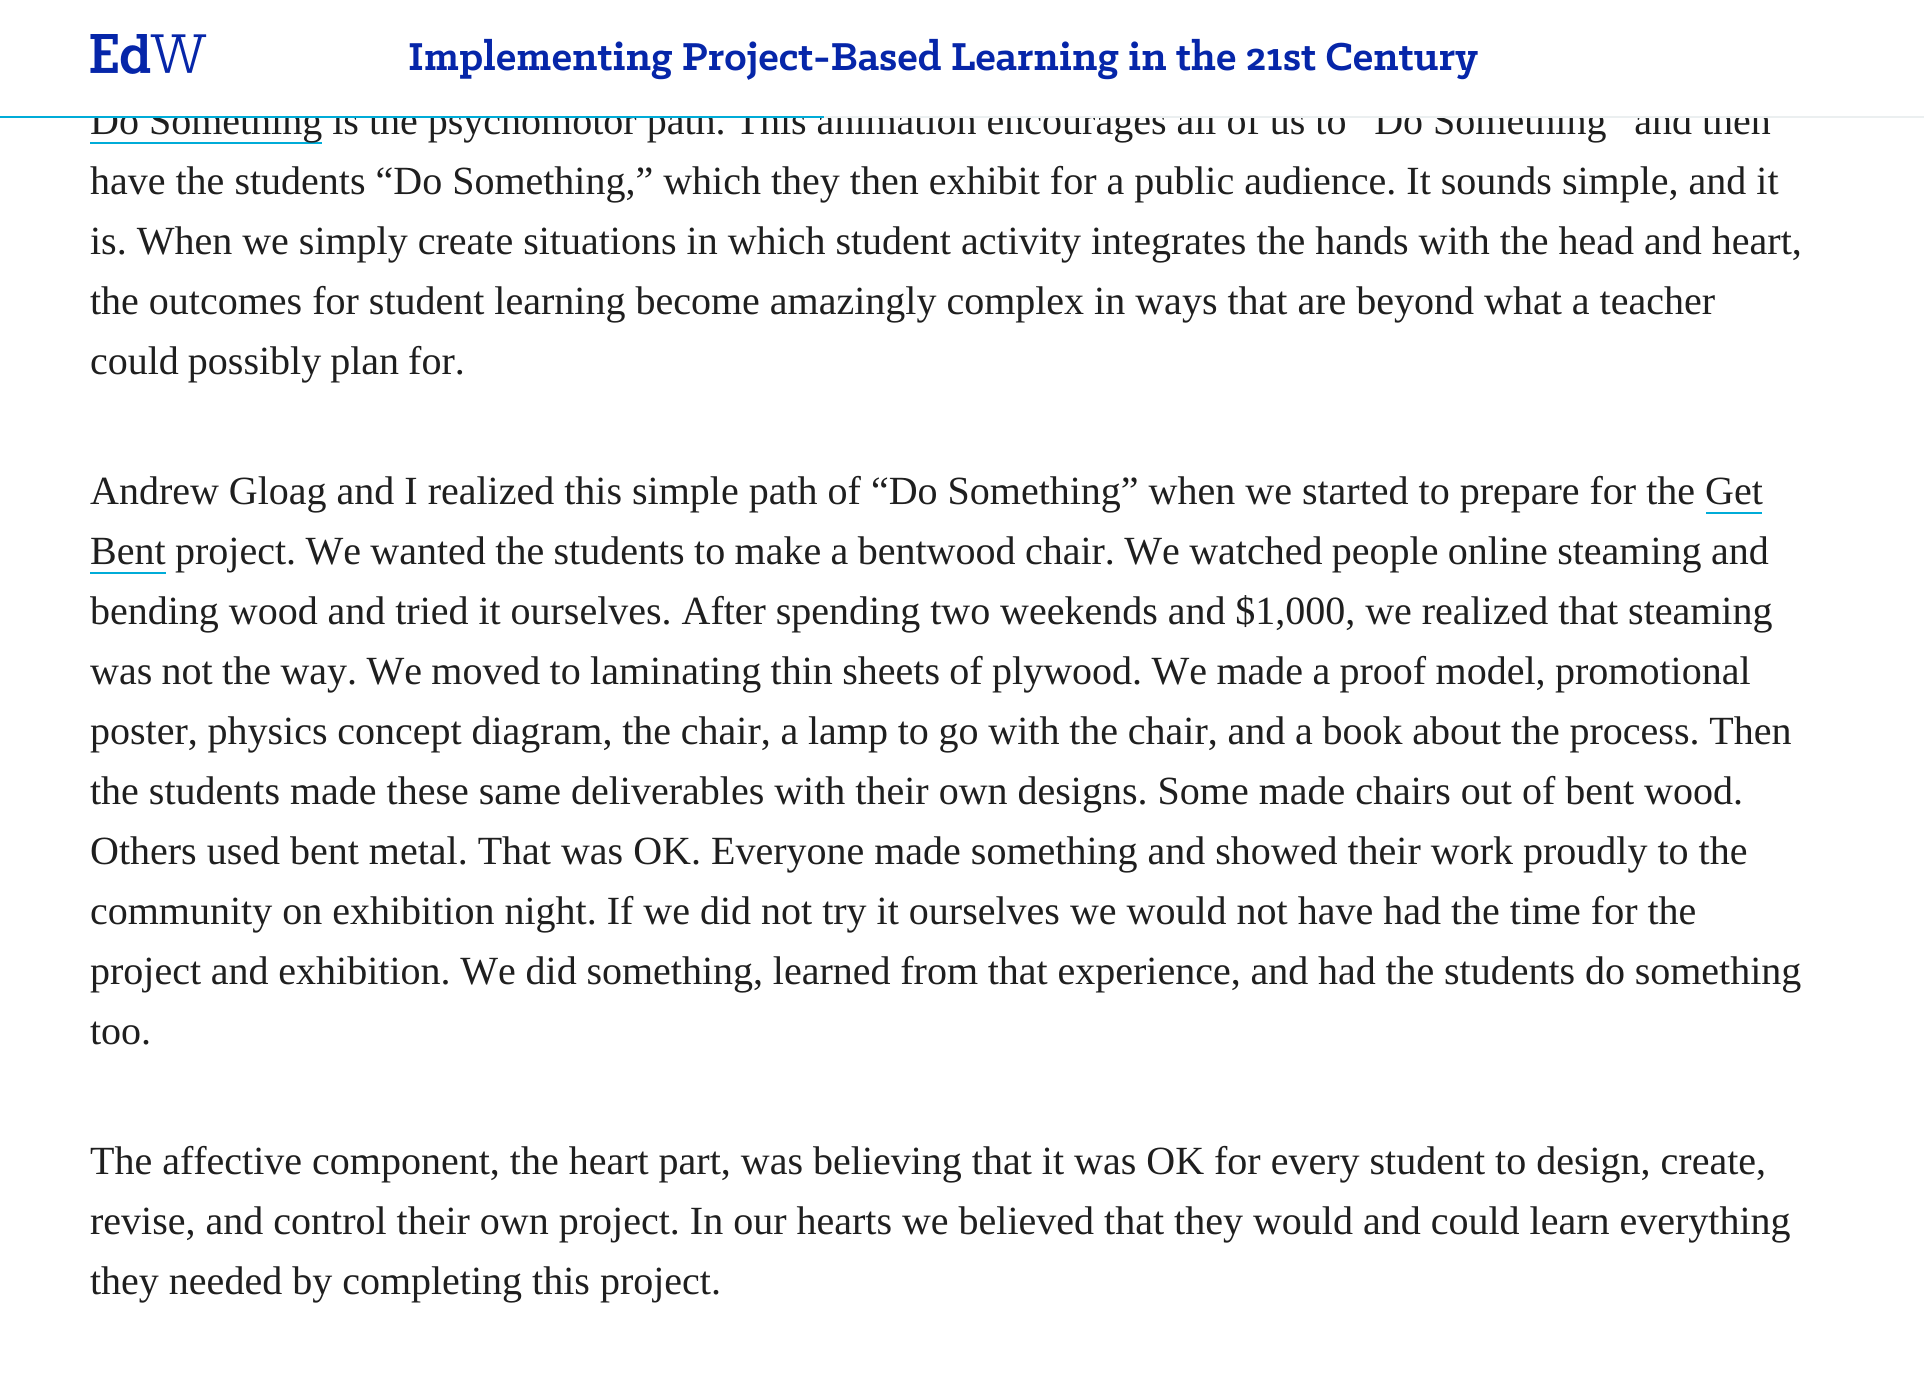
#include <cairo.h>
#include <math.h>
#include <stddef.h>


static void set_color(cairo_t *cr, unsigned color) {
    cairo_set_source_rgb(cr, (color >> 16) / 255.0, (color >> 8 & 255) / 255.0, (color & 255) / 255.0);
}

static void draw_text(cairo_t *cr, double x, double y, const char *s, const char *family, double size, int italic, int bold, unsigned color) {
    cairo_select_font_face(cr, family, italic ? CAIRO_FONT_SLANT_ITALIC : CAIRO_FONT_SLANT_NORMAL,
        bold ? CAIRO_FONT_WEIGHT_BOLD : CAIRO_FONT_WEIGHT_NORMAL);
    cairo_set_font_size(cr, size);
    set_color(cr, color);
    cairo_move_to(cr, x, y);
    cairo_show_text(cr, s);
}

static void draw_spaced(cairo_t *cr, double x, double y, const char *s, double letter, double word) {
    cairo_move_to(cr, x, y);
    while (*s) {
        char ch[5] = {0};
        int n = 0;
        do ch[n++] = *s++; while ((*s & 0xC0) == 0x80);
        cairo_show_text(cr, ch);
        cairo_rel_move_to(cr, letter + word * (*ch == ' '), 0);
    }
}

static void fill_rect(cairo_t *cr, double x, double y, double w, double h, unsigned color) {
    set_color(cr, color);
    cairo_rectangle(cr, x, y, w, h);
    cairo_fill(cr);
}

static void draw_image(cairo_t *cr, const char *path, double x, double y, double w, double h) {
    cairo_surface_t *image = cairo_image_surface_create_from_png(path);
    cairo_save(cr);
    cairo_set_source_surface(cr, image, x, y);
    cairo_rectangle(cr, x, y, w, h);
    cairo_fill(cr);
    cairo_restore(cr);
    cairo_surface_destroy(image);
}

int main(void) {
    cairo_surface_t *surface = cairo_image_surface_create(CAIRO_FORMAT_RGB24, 1924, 1373);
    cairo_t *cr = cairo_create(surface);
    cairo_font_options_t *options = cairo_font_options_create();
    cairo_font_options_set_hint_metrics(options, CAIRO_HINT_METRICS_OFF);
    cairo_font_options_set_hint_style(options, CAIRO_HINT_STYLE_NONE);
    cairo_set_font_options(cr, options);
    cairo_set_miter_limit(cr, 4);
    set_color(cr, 0xFFFFFF);
    cairo_paint(cr);
    fill_rect(cr, 90, 142, 232, 2, 0x00ACD8);
    draw_text(cr, 90, 134, "Do Something is the psychomotor path. This animation encourages all of us to “Do Something” and then", "Liberation Serif", 40, 0, 0, 0x1F1F1F);
    fill_rect(cr, 91, 105, 1675, 11, 0xFFFFFF);
    fill_rect(cr, 824, 116, 1100, 2, 0xEBEFF0);
    draw_image(cr, "assets/img1.png", 90, 34, 117, 40);
    draw_image(cr, "assets/img2.png", 409, 38, 1069, 42);
    fill_rect(cr, 0, 116, 824, 2, 0x00ACD8);
    draw_text(cr, 90, 194, "have the students “Do Something,” which they then exhibit for a public audience. It sounds simple, and it", "Liberation Serif", 40, 0, 0, 0x1F1F1F);
    draw_text(cr, 90, 254, "is. When we simply create situations in which student activity integrates the hands with the head and heart,", "Liberation Serif", 40, 0, 0, 0x1F1F1F);
    draw_text(cr, 90, 314, "the outcomes for student learning become amazingly complex in ways that are beyond what a teacher", "Liberation Serif", 40, 0, 0, 0x1F1F1F);
    draw_spaced(cr, 90, 374, "could possibly plan for.", 0, -1);
    draw_text(cr, 90, 504, "Andrew Gloag and I realized this simple path of “Do Something” when we started to prepare for the Get", "Liberation Serif", 40, 0, 0, 0x1F1F1F);
    draw_text(cr, 90, 564, "Bent", "Liberation Serif", 40, 0, 0, 0x1F1F1F);
    fill_rect(cr, 1706, 512, 56, 2, 0x00ACD8);
    fill_rect(cr, 90, 572, 76, 2, 0x00ACD8);
    set_color(cr, 0x1F1F1F);
    draw_spaced(cr, 175, 564, "project. We wanted the students to make a bentwood chair. We watched people online steaming and", 0, -0.6);
    draw_spaced(cr, 90, 624, "bending wood and tried it ourselves. After spending two weekends and $1,000, we realized that steaming", 0, -0.1);
    draw_spaced(cr, 90, 684, "was not the way. We moved to laminating thin sheets of plywood. We made a proof model, promotional", 0, -0.6);
    draw_spaced(cr, 90, 744, "poster, physics concept diagram, the chair, a lamp to go with the chair, and a book about the process. Then", 0, -0.25);
    draw_text(cr, 90, 804, "the students made these same deliverables with their own designs. Some made chairs out of bent wood.", "Liberation Serif", 40, 0, 0, 0x1F1F1F);
    draw_text(cr, 90, 864, "Others used bent metal. That was OK. Everyone made something and showed their work proudly to the", "Liberation Serif", 40, 0, 0, 0x1F1F1F);
    draw_text(cr, 90, 924, "community on exhibition night. If we did not try it ourselves we would not have had the time for the", "Liberation Serif", 40, 0, 0, 0x1F1F1F);
    draw_spaced(cr, 90, 984, "project and exhibition. We did something, learned from that experience, and had the students do something", 0, -0.25);
    draw_text(cr, 90, 1044, "too.", "Liberation Serif", 40, 0, 0, 0x1F1F1F);
    draw_text(cr, 90, 1174, "The affective component, the heart part, was believing that it was OK for every student to design, create,", "Liberation Serif", 40, 0, 0, 0x1F1F1F);
    draw_text(cr, 90, 1234, "revise, and control their own project. In our hearts we believed that they would and could learn everything", "Liberation Serif", 40, 0, 0, 0x1F1F1F);
    draw_text(cr, 90, 1294, "they needed by completing this project.", "Liberation Serif", 40, 0, 0, 0x1F1F1F);
    cairo_surface_write_to_png(surface, "output.png");
    cairo_font_options_destroy(options);
    cairo_destroy(cr);
    cairo_surface_destroy(surface);
    return 0;
}
